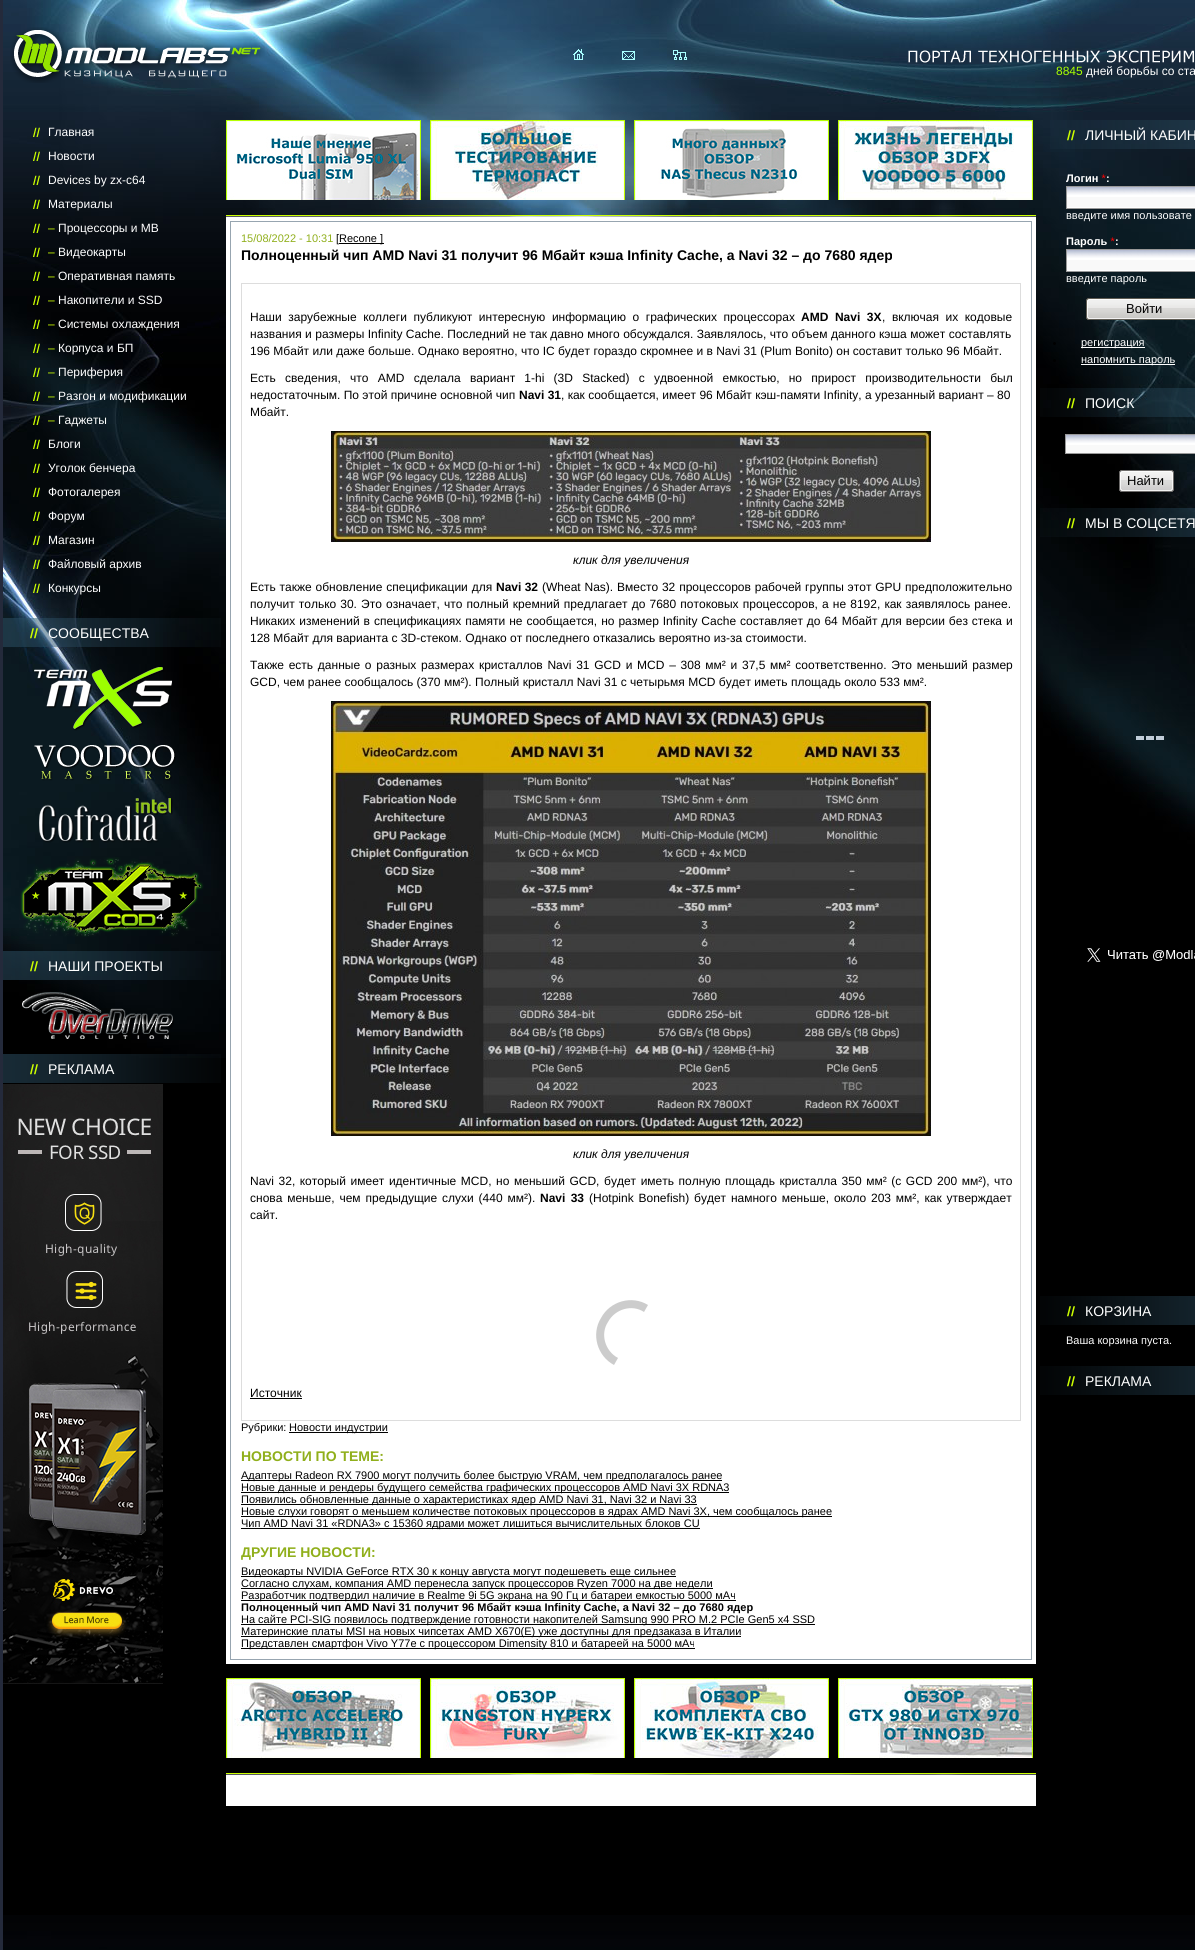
#include <cairo.h>
#include <math.h>
#include <stddef.h>


static void set_color(cairo_t *cr, unsigned color) {
    cairo_set_source_rgb(cr, (color >> 16) / 255.0, (color >> 8 & 255) / 255.0, (color & 255) / 255.0);
}

static void draw_text(cairo_t *cr, double x, double y, const char *s, const char *family, double size, int italic, int bold, unsigned color) {
    cairo_select_font_face(cr, family, italic ? CAIRO_FONT_SLANT_ITALIC : CAIRO_FONT_SLANT_NORMAL,
        bold ? CAIRO_FONT_WEIGHT_BOLD : CAIRO_FONT_WEIGHT_NORMAL);
    cairo_set_font_size(cr, size);
    set_color(cr, color);
    cairo_move_to(cr, x, y);
    cairo_show_text(cr, s);
}

static void draw_spaced(cairo_t *cr, double x, double y, const char *s, double letter, double word) {
    cairo_move_to(cr, x, y);
    while (*s) {
        char ch[5] = {0};
        int n = 0;
        do ch[n++] = *s++; while ((*s & 0xC0) == 0x80);
        cairo_show_text(cr, ch);
        cairo_rel_move_to(cr, letter + word * (*ch == ' '), 0);
    }
}

static void fill_rect(cairo_t *cr, double x, double y, double w, double h, unsigned color) {
    set_color(cr, color);
    cairo_rectangle(cr, x, y, w, h);
    cairo_fill(cr);
}

static void draw_image(cairo_t *cr, const char *path, double x, double y, double w, double h) {
    cairo_surface_t *image = cairo_image_surface_create_from_png(path);
    cairo_save(cr);
    cairo_set_source_surface(cr, image, x, y);
    cairo_rectangle(cr, x, y, w, h);
    cairo_fill(cr);
    cairo_restore(cr);
    cairo_surface_destroy(image);
}

int main(void) {
    cairo_surface_t *surface = cairo_image_surface_create(CAIRO_FORMAT_RGB24, 1195, 1950);
    cairo_t *cr = cairo_create(surface);
    cairo_font_options_t *options = cairo_font_options_create();
    cairo_font_options_set_hint_metrics(options, CAIRO_HINT_METRICS_OFF);
    cairo_font_options_set_hint_style(options, CAIRO_HINT_STYLE_NONE);
    cairo_set_font_options(cr, options);
    cairo_set_miter_limit(cr, 4);
    set_color(cr, 0x000000);
    cairo_paint(cr);
    draw_image(cr, "assets/img1.png", 3, 0, 1192, 1058);
    fill_rect(cr, 0, 0, 3, 1950, 0x242A3B);
    draw_image(cr, "assets/img2.png", 3, 1915, 1192, 35);
    draw_image(cr, "assets/img3.png", 10, 27, 255, 56);
    draw_image(cr, "assets/img4.png", 573, 49, 11, 11);
    draw_image(cr, "assets/img5.png", 622, 51, 13, 9);
    draw_image(cr, "assets/img6.png", 673, 50, 14, 10);
    draw_image(cr, "assets/img7.png", 908, 50, 286, 13);
    draw_text(cr, 1056, 75, "8845", "Liberation Sans", 12, 0, 0, 0xA8FF00);
    draw_text(cr, 1086, 75, "дней борьбы со ста", "Liberation Sans", 12, 0, 0, 0xFFFFFF);
    draw_image(cr, "assets/img8.png", 33, 127, 7, 10);
    draw_text(cr, 48, 136, "Главная", "Liberation Sans", 12, 0, 0, 0xFFFFFF);
    draw_image(cr, "assets/img9.png", 33, 151, 7, 10);
    draw_text(cr, 48, 160, "Новости", "Liberation Sans", 12, 0, 0, 0xFFFFFF);
    draw_image(cr, "assets/img10.png", 33, 175, 7, 10);
    draw_text(cr, 48, 184, "Devices by zx-c64", "Liberation Sans", 12, 0, 0, 0xFFFFFF);
    draw_image(cr, "assets/img11.png", 33, 199, 7, 10);
    draw_text(cr, 48, 208, "Материалы", "Liberation Sans", 12, 0, 0, 0xFFFFFF);
    draw_image(cr, "assets/img12.png", 33, 223, 7, 10);
    draw_text(cr, 48, 232, "–", "Liberation Sans", 12, 0, 0, 0xCCFF00);
    draw_text(cr, 58, 232, "Процессоры и MB", "Liberation Sans", 12, 0, 0, 0xFFFFFF);
    draw_image(cr, "assets/img13.png", 33, 247, 7, 10);
    draw_text(cr, 48, 256, "–", "Liberation Sans", 12, 0, 0, 0xCCFF00);
    draw_text(cr, 58, 256, "Видеокарты", "Liberation Sans", 12, 0, 0, 0xFFFFFF);
    draw_image(cr, "assets/img14.png", 33, 271, 7, 10);
    draw_text(cr, 48, 280, "–", "Liberation Sans", 12, 0, 0, 0xCCFF00);
    draw_text(cr, 58, 280, "Оперативная память", "Liberation Sans", 12, 0, 0, 0xFFFFFF);
    draw_image(cr, "assets/img15.png", 33, 295, 7, 10);
    draw_text(cr, 48, 304, "–", "Liberation Sans", 12, 0, 0, 0xCCFF00);
    draw_text(cr, 58, 304, "Накопители и SSD", "Liberation Sans", 12, 0, 0, 0xFFFFFF);
    draw_image(cr, "assets/img16.png", 33, 319, 7, 10);
    draw_text(cr, 48, 328, "–", "Liberation Sans", 12, 0, 0, 0xCCFF00);
    draw_text(cr, 58, 328, "Системы охлаждения", "Liberation Sans", 12, 0, 0, 0xFFFFFF);
    draw_image(cr, "assets/img17.png", 33, 343, 7, 10);
    draw_text(cr, 48, 352, "–", "Liberation Sans", 12, 0, 0, 0xCCFF00);
    draw_text(cr, 58, 352, "Корпуса и БП", "Liberation Sans", 12, 0, 0, 0xFFFFFF);
    draw_image(cr, "assets/img18.png", 33, 367, 7, 10);
    draw_text(cr, 48, 376, "–", "Liberation Sans", 12, 0, 0, 0xCCFF00);
    draw_text(cr, 58, 376, "Периферия", "Liberation Sans", 12, 0, 0, 0xFFFFFF);
    draw_image(cr, "assets/img19.png", 33, 391, 7, 10);
    draw_text(cr, 48, 400, "–", "Liberation Sans", 12, 0, 0, 0xCCFF00);
    draw_text(cr, 58, 400, "Разгон и модификации", "Liberation Sans", 12, 0, 0, 0xFFFFFF);
    draw_image(cr, "assets/img20.png", 33, 415, 7, 10);
    draw_text(cr, 48, 424, "–", "Liberation Sans", 12, 0, 0, 0xCCFF00);
    draw_text(cr, 58, 424, "Гаджеты", "Liberation Sans", 12, 0, 0, 0xFFFFFF);
    draw_image(cr, "assets/img21.png", 33, 439, 7, 10);
    draw_text(cr, 48, 448, "Блоги", "Liberation Sans", 12, 0, 0, 0xFFFFFF);
    draw_image(cr, "assets/img22.png", 33, 463, 7, 10);
    draw_text(cr, 48, 472, "Уголок бенчера", "Liberation Sans", 12, 0, 0, 0xFFFFFF);
    draw_image(cr, "assets/img22.png", 33, 487, 7, 10);
    draw_text(cr, 48, 496, "Фотогалерея", "Liberation Sans", 12, 0, 0, 0xFFFFFF);
    draw_image(cr, "assets/img23.png", 33, 511, 7, 10);
    draw_text(cr, 48, 520, "Форум", "Liberation Sans", 12, 0, 0, 0xFFFFFF);
    draw_image(cr, "assets/img24.png", 33, 535, 7, 10);
    draw_text(cr, 48, 544, "Магазин", "Liberation Sans", 12, 0, 0, 0xFFFFFF);
    draw_image(cr, "assets/img25.png", 33, 559, 7, 10);
    draw_text(cr, 48, 568, "Файловый архив", "Liberation Sans", 12, 0, 0, 0xFFFFFF);
    draw_image(cr, "assets/img26.png", 33, 583, 7, 10);
    draw_text(cr, 48, 592, "Конкурсы", "Liberation Sans", 12, 0, 0, 0xFFFFFF);
    draw_image(cr, "assets/img27.png", 3, 618, 218, 29);
    draw_text(cr, 48, 638, "СООБЩЕСТВА", "Liberation Sans", 14, 0, 0, 0xFFFFFF);
    draw_image(cr, "assets/img28.png", 34, 667, 138, 64);
    draw_image(cr, "assets/img29.png", 34, 745, 142, 36);
    draw_image(cr, "assets/img30.png", 39, 798, 134, 45);
    draw_image(cr, "assets/img31.png", 20, 857, 184, 80);
    draw_image(cr, "assets/img32.png", 3, 951, 218, 29);
    draw_text(cr, 48, 971, "НАШИ ПРОЕКТЫ", "Liberation Sans", 14, 0, 0, 0xFFFFFF);
    draw_image(cr, "assets/img33.png", 22, 992, 152, 47);
    draw_image(cr, "assets/img34.png", 3, 1054, 218, 29);
    draw_text(cr, 48, 1074, "РЕКЛАМА", "Liberation Sans", 14, 0, 0, 0xFFFFFF);
    draw_image(cr, "assets/img35.png", 3, 1084, 160, 600);
    draw_image(cr, "assets/img36.png", 226, 120, 195, 80);
    draw_image(cr, "assets/img37.png", 430, 120, 195, 80);
    draw_image(cr, "assets/img38.png", 634, 120, 195, 80);
    draw_image(cr, "assets/img39.png", 838, 120, 195, 80);
    fill_rect(cr, 226, 217, 810, 1447, 0xFFFFFF);
    draw_image(cr, "assets/img40.png", 226, 215, 810, 2);
    cairo_rectangle(cr, 230.5, 221.5, 801, 1438);
    set_color(cr, 0x97A5B0);
    cairo_set_line_width(cr, 1);
    cairo_stroke(cr);
    draw_text(cr, 241, 242, "15/08/2022 - 10:31", "Liberation Sans", 11, 0, 0, 0x90AF1B);
    draw_text(cr, 336, 242, "[Recone", "Liberation Sans", 11, 0, 0, 0x000000);
    fill_rect(cr, 339, 243, 45, 1, 0x000000);
    draw_text(cr, 380, 242, "]", "Liberation Sans", 11, 0, 0, 0x000000);
    draw_text(cr, 241, 260, "Полноценный чип AMD Navi 31 получит 96 Мбайт кэша Infinity Cache, а Navi 32 – до 7680 ядер", "Liberation Sans", 14, 0, 1, 0x000000);
    cairo_rectangle(cr, 241.5, 283.5, 779, 1137);
    set_color(cr, 0xDDDDDD);
    cairo_stroke(cr);
    cairo_select_font_face(cr, "Liberation Sans", CAIRO_FONT_SLANT_NORMAL, CAIRO_FONT_WEIGHT_NORMAL);
    cairo_set_font_size(cr, 12);
    set_color(cr, 0x000000);
    draw_spaced(cr, 250, 321, "Наши зарубежные коллеги публикуют интересную информацию о графических процессорах", 0, 3.25);
    cairo_select_font_face(cr, "Liberation Sans", CAIRO_FONT_SLANT_NORMAL, CAIRO_FONT_WEIGHT_BOLD);
    draw_spaced(cr, 801, 321, "AMD Navi 3X", 0, 3.25);
    cairo_select_font_face(cr, "Liberation Sans", CAIRO_FONT_SLANT_NORMAL, CAIRO_FONT_WEIGHT_NORMAL);
    draw_spaced(cr, 882, 321, ", включая их кодовые", 0, 3.25);
    draw_spaced(cr, 250, 338, "названия и размеры Infinity Cache. Последний не так давно много обсуждался. Заявлялось, что объем данного кэша может составлять", 0, 0.1);
    draw_text(cr, 250, 355, "196 Мбайт или даже больше. Однако вероятно, что IC будет гораздо скромнее и в Navi 31 (Plum Bonito) он составит только 96 Мбайт.", "Liberation Sans", 12, 0, 0, 0x000000);
    draw_spaced(cr, 250, 382, "Есть сведения, что AMD сделала вариант 1-hi (3D Stacked) с удвоенной емкостью, но прирост производительности был", 0, 5.9);
    draw_text(cr, 250, 399, "недостаточным. По этой причине основной чип", "Liberation Sans", 12, 0, 0, 0x000000);
    draw_text(cr, 519, 399, "Navi 31", "Liberation Sans", 12, 0, 1, 0x000000);
    draw_text(cr, 561, 399, ", как сообщается, имеет 96 Мбайт кэш-памяти Infinity, а урезанный вариант – 80", "Liberation Sans", 12, 0, 0, 0x000000);
    draw_text(cr, 250, 416, "Мбайт.", "Liberation Sans", 12, 0, 0, 0x000000);
    draw_image(cr, "assets/img41.png", 331, 431, 600, 111);
    draw_text(cr, 573, 564, "клик для увеличения", "Liberation Sans", 12, 1, 0, 0x000000);
    cairo_select_font_face(cr, "Liberation Sans", CAIRO_FONT_SLANT_NORMAL, CAIRO_FONT_WEIGHT_NORMAL);
    draw_spaced(cr, 250, 591, "Есть также обновление спецификации для", 0, 0.5);
    draw_text(cr, 496, 591, "Navi 32", "Liberation Sans", 12, 0, 1, 0x000000);
    cairo_select_font_face(cr, "Liberation Sans", CAIRO_FONT_SLANT_NORMAL, CAIRO_FONT_WEIGHT_NORMAL);
    draw_spaced(cr, 542, 591, "(Wheat Nas). Вместо 32 процессоров рабочей группы этот GPU предположительно", 0, 0.5);
    draw_spaced(cr, 250, 608, "получит только 30. Это означает, что полный кремний предлагает до 7680 потоковых процессоров, а не 8192, как заявлялось ранее.", 0, 0.8);
    draw_spaced(cr, 250, 625, "Никаких изменений в спецификациях памяти не сообщается, но размер Infinity Cache составляет до 64 Мбайт для версии без стека и", 0, 0.6);
    draw_text(cr, 250, 642, "128 Мбайт для варианта с 3D-стеком. Однако от последнего отказались вероятно из-за стоимости.", "Liberation Sans", 12, 0, 0, 0x000000);
    draw_spaced(cr, 250, 669, "Также есть данные о разных размерах кристаллов Navi 31 GCD и MCD – 308 мм² и 37,5 мм² соответственно. Это меньший размер", 0, 1.4);
    draw_text(cr, 250, 686, "GCD, чем ранее сообщалось (370 мм²). Полный кристалл Navi 31 с четырьмя MCD будет иметь площадь около 533 мм².", "Liberation Sans", 12, 0, 0, 0x000000);
    draw_image(cr, "assets/img42.png", 331, 701, 600, 435);
    draw_text(cr, 573, 1158, "клик для увеличения", "Liberation Sans", 12, 1, 0, 0x000000);
    cairo_select_font_face(cr, "Liberation Sans", CAIRO_FONT_SLANT_NORMAL, CAIRO_FONT_WEIGHT_NORMAL);
    draw_spaced(cr, 250, 1185, "Navi 32, который имеет идентичные MCD, но меньший GCD, будет иметь полную площадь кристалла 350 мм² (с GCD 200 мм²), что", 0, 1.25);
    draw_spaced(cr, 250, 1202, "снова меньше, чем предыдущие слухи (440 мм²).", 0, 1.5);
    cairo_select_font_face(cr, "Liberation Sans", CAIRO_FONT_SLANT_NORMAL, CAIRO_FONT_WEIGHT_BOLD);
    draw_spaced(cr, 540, 1202, "Navi 33", 0, 2);
    cairo_select_font_face(cr, "Liberation Sans", CAIRO_FONT_SLANT_NORMAL, CAIRO_FONT_WEIGHT_NORMAL);
    draw_spaced(cr, 589, 1202, "(Hotpink Bonefish) будет намного меньше, около 203 мм², как утверждает", 0, 1.5);
    draw_text(cr, 250, 1219, "сайт.", "Liberation Sans", 12, 0, 0, 0x000000);
    set_color(cr, 0xCCCCCC);
    cairo_new_path(cr);
    cairo_move_to(cr, 648, 1305);
    cairo_curve_to(cr, 632, 1295, 610, 1301, 601, 1318);
    cairo_curve_to(cr, 591, 1334, 597, 1356, 614, 1365);
    cairo_line_to(cr, 618, 1358);
    cairo_curve_to(cr, 605, 1351, 600, 1334, 608, 1322);
    cairo_curve_to(cr, 615, 1309, 632, 1304, 644, 1312);
    cairo_close_path(cr);
    cairo_fill(cr);
    draw_text(cr, 250, 1397, "Источник", "Liberation Sans", 12, 0, 0, 0x000000);
    fill_rect(cr, 250, 1398, 52, 1, 0x000000);
    draw_text(cr, 241, 1431, "Рубрики:", "Liberation Sans", 11, 0, 0, 0x000000);
    fill_rect(cr, 289, 1432, 99, 1, 0x000000);
    draw_text(cr, 289, 1431, "Новости индустрии", "Liberation Sans", 11, 0, 0, 0x000000);
    draw_text(cr, 241, 1461, "НОВОСТИ ПО ТЕМЕ:", "Liberation Sans", 14, 0, 1, 0x90AF1B);
    fill_rect(cr, 241, 1480, 481, 1, 0x000000);
    draw_text(cr, 241, 1479, "Адаптеры Radeon RX 7900 могут получить более быструю VRAM, чем предполагалось ранее", "Liberation Sans", 11, 0, 0, 0x000000);
    fill_rect(cr, 241, 1492, 488, 1, 0x000000);
    draw_text(cr, 241, 1491, "Новые данные и рендеры будущего семейства графических процессоров AMD Navi 3X RDNA3", "Liberation Sans", 11, 0, 0, 0x000000);
    fill_rect(cr, 241, 1504, 456, 1, 0x000000);
    draw_text(cr, 241, 1503, "Появились обновленные данные о характеристиках ядер AMD Navi 31, Navi 32 и Navi 33", "Liberation Sans", 11, 0, 0, 0x000000);
    fill_rect(cr, 241, 1516, 591, 1, 0x000000);
    draw_text(cr, 241, 1515, "Новые слухи говорят о меньшем количестве потоковых процессоров в ядрах AMD Navi 3X, чем сообщалось ранее", "Liberation Sans", 11, 0, 0, 0x000000);
    fill_rect(cr, 241, 1528, 459, 1, 0x000000);
    draw_text(cr, 241, 1527, "Чип AMD Navi 31 «RDNA3» с 15360 ядрами может лишиться вычислительных блоков CU", "Liberation Sans", 11, 0, 0, 0x000000);
    draw_text(cr, 241, 1557, "ДРУГИЕ НОВОСТИ:", "Liberation Sans", 14, 0, 1, 0x90AF1B);
    fill_rect(cr, 241, 1576, 435, 1, 0x000000);
    draw_text(cr, 241, 1575, "Видеокарты NVIDIA GeForce RTX 30 к концу августа могут подешеветь еще сильнее", "Liberation Sans", 11, 0, 0, 0x000000);
    fill_rect(cr, 241, 1588, 472, 1, 0x000000);
    draw_text(cr, 241, 1587, "Согласно слухам, компания AMD перенесла запуск процессоров Ryzen 7000 на две недели", "Liberation Sans", 11, 0, 0, 0x000000);
    fill_rect(cr, 241, 1600, 495, 1, 0x000000);
    draw_text(cr, 241, 1599, "Разработчик подтвердил наличие в Realme 9i 5G экрана на 90 Гц и батареи емкостью 5000 мАч", "Liberation Sans", 11, 0, 0, 0x000000);
    draw_text(cr, 241, 1611, "Полноценный чип AMD Navi 31 получит 96 Мбайт кэша Infinity Cache, а Navi 32 – до 7680 ядер", "Liberation Sans", 11, 0, 1, 0x000000);
    fill_rect(cr, 241, 1624, 574, 1, 0x000000);
    draw_text(cr, 241, 1623, "На сайте PCI-SIG появилось подтверждение готовности накопителей Samsung 990 PRO M.2 PCIe Gen5 x4 SSD", "Liberation Sans", 11, 0, 0, 0x000000);
    fill_rect(cr, 241, 1636, 500, 1, 0x000000);
    draw_text(cr, 241, 1635, "Материнские платы MSI на новых чипсетах AMD X670(E) уже доступны для предзаказа в Италии", "Liberation Sans", 11, 0, 0, 0x000000);
    fill_rect(cr, 241, 1648, 454, 1, 0x000000);
    draw_text(cr, 241, 1647, "Представлен смартфон Vivo Y77e с процессором Dimensity 810 и батареей на 5000 мАч", "Liberation Sans", 11, 0, 0, 0x000000);
    draw_image(cr, "assets/img43.png", 226, 1678, 195, 80);
    draw_image(cr, "assets/img44.png", 430, 1678, 195, 80);
    draw_image(cr, "assets/img45.png", 634, 1678, 195, 80);
    draw_image(cr, "assets/img46.png", 838, 1678, 195, 80);
    fill_rect(cr, 226, 1775, 810, 31, 0xFFFFFF);
    draw_image(cr, "assets/img40.png", 226, 1773, 810, 2);
    draw_image(cr, "assets/img47.png", 1050, 120, 145, 29);
    draw_text(cr, 1085, 140, "ЛИЧНЫЙ КАБИН", "Liberation Sans", 14, 0, 0, 0xFFFFFF);
    draw_text(cr, 1066, 182, "Логин", "Liberation Sans", 11, 0, 1, 0xFFFFFF);
    draw_text(cr, 1101, 182, "*", "Liberation Sans", 11, 1, 0, 0xFF0000);
    draw_text(cr, 1106, 182, ":", "Liberation Sans", 11, 0, 1, 0xFFFFFF);
    fill_rect(cr, 1067, 207, 128, 1, 0xFFFFFF);
    draw_image(cr, "assets/img48.png", 1067, 187, 128, 20);
    cairo_rectangle(cr, 1066.5, 186.5, 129, 22);
    set_color(cr, 0x999999);
    cairo_stroke(cr);
    draw_text(cr, 1066, 219, "введите имя пользовате", "Liberation Sans", 11, 0, 0, 0xFFFFFF);
    draw_text(cr, 1066, 245, "Пароль", "Liberation Sans", 11, 0, 1, 0xFFFFFF);
    draw_text(cr, 1110, 245, "*", "Liberation Sans", 11, 1, 0, 0xFF0000);
    draw_text(cr, 1115, 245, ":", "Liberation Sans", 11, 0, 1, 0xFFFFFF);
    fill_rect(cr, 1067, 270, 128, 1, 0xFFFFFF);
    draw_image(cr, "assets/img48.png", 1067, 250, 128, 20);
    cairo_rectangle(cr, 1066.5, 249.5, 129, 22);
    set_color(cr, 0x999999);
    cairo_stroke(cr);
    draw_text(cr, 1066, 282, "введите пароль", "Liberation Sans", 11, 0, 0, 0xFFFFFF);
    draw_image(cr, "assets/img49.png", 1086, 298, 109, 22);
    draw_text(cr, 1126, 313, "Войти", "Liberation Sans", 13, 0, 0, 0x000000);
    cairo_new_path(cr);
    cairo_arc(cr, 1054.5, 343.5, 1.5, 0, 2 * M_PI);
    cairo_fill(cr);
    fill_rect(cr, 1081, 347, 64, 1, 0xFFFFFF);
    draw_text(cr, 1081, 346, "регистрация", "Liberation Sans", 11, 0, 0, 0xFFFFFF);
    set_color(cr, 0x000000);
    cairo_new_path(cr);
    cairo_arc(cr, 1054.5, 360.5, 1.5, 0, 2 * M_PI);
    cairo_fill(cr);
    fill_rect(cr, 1081, 364, 94, 1, 0xFFFFFF);
    draw_text(cr, 1081, 363, "напомнить пароль", "Liberation Sans", 11, 0, 0, 0xFFFFFF);
    draw_image(cr, "assets/img50.png", 1040, 388, 155, 29);
    draw_text(cr, 1085, 408, "ПОИСК", "Liberation Sans", 14, 0, 0, 0xFFFFFF);
    draw_image(cr, "assets/img51.png", 1066, 435, 129, 18);
    cairo_rectangle(cr, 1065.5, 434.5, 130, 19);
    set_color(cr, 0x999999);
    cairo_stroke(cr);
    draw_image(cr, "assets/img52.png", 1119, 470, 55, 22);
    draw_text(cr, 1127, 485, "Найти", "Liberation Sans", 13, 0, 0, 0x000000);
    draw_image(cr, "assets/img53.png", 1040, 508, 155, 29);
    draw_text(cr, 1085, 528, "МЫ В СОЦСЕТЯ", "Liberation Sans", 14, 0, 0, 0xFFFFFF);
    draw_image(cr, "assets/img54.png", 1136, 736, 28, 4);
    draw_image(cr, "assets/img55.png", 1087, 948, 108, 14);
    draw_image(cr, "assets/img56.png", 1040, 1296, 155, 29);
    draw_text(cr, 1085, 1316, "КОРЗИНА", "Liberation Sans", 14, 0, 0, 0xFFFFFF);
    draw_text(cr, 1066, 1344, "Ваша корзина пуста.", "Liberation Sans", 11, 0, 0, 0xFFFFFF);
    draw_image(cr, "assets/img56.png", 1040, 1366, 155, 29);
    draw_text(cr, 1085, 1386, "РЕКЛАМА", "Liberation Sans", 14, 0, 0, 0xFFFFFF);
    cairo_surface_write_to_png(surface, "output.png");
    cairo_font_options_destroy(options);
    cairo_destroy(cr);
    cairo_surface_destroy(surface);
    return 0;
}
